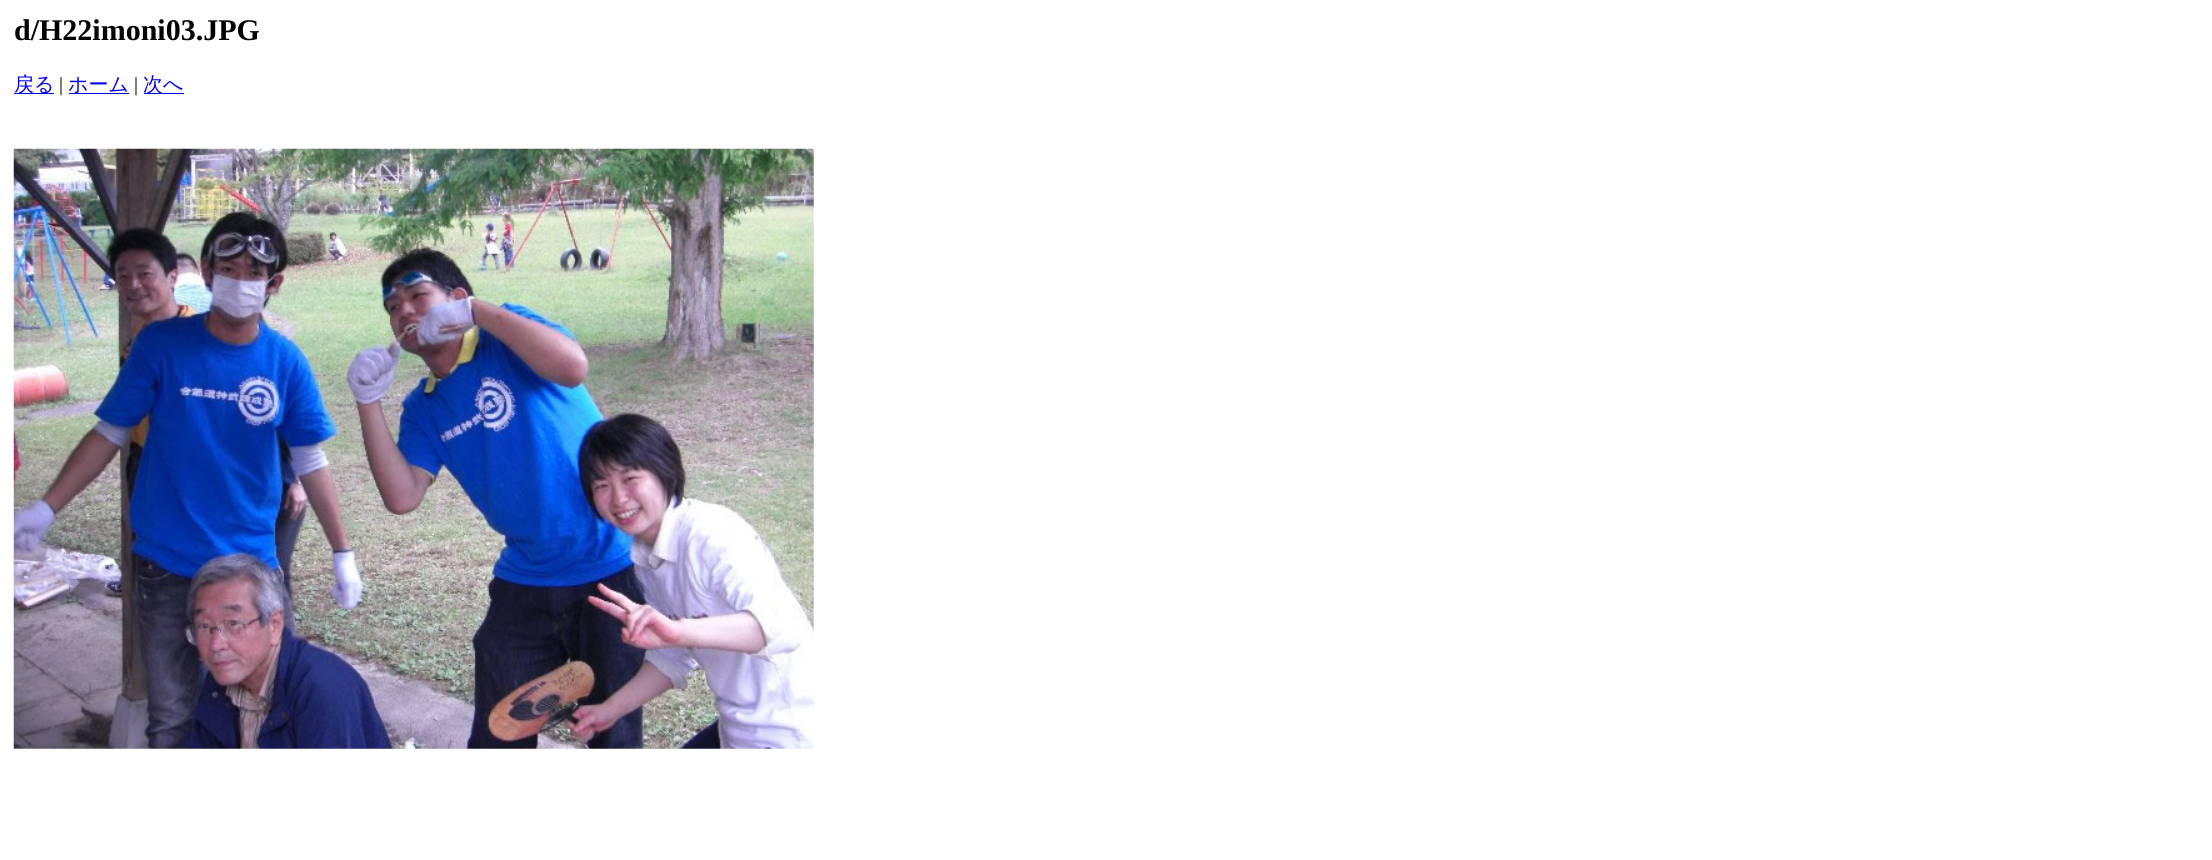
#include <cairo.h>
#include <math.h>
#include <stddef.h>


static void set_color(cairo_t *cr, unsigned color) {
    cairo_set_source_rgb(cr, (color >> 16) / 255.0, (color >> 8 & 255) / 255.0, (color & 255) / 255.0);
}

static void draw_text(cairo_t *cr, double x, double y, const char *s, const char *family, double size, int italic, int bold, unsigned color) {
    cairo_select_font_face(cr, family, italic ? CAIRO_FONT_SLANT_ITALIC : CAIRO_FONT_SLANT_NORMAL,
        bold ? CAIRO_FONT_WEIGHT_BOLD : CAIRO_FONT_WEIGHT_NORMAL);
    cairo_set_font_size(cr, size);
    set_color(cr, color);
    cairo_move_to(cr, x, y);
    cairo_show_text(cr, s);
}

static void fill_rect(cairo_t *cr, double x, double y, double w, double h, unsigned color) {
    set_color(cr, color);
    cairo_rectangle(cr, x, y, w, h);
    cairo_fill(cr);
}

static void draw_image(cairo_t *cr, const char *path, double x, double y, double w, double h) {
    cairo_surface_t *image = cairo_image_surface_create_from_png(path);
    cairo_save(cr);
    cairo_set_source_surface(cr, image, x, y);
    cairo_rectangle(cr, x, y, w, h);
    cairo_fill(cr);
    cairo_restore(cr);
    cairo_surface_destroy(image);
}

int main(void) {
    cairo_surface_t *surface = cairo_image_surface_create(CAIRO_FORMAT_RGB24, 2212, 860);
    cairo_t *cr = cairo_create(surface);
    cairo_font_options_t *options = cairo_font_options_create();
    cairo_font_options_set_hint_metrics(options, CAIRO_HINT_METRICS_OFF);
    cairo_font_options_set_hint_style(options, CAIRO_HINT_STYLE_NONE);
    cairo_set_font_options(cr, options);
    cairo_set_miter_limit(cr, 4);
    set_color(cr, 0xFFFFFF);
    cairo_paint(cr);
    draw_text(cr, 14, 40, "d/H22imoni03.JPG", "Liberation Serif", 30, 0, 1, 0x000000);
    fill_rect(cr, 14, 93, 40, 1, 0x0000EE);
    draw_text(cr, 14, 91, "戻る", "WenQuanYi Zen Hei Medium", 20, 0, 0, 0x0000EE);
    draw_text(cr, 59, 91, "|", "Liberation Serif", 20, 0, 0, 0x000000);
    fill_rect(cr, 69, 93, 60, 1, 0x0000EE);
    draw_text(cr, 68, 91, "ホーム", "WenQuanYi Zen Hei Medium", 20, 0, 0, 0x0000EE);
    draw_text(cr, 134, 91, "|", "Liberation Serif", 20, 0, 0, 0x000000);
    fill_rect(cr, 144, 93, 40, 1, 0x0000EE);
    draw_text(cr, 143, 91, "次へ", "WenQuanYi Zen Hei Medium", 20, 0, 0, 0x0000EE);
    draw_image(cr, "assets/img1.png", 13, 148, 801, 601);
    cairo_surface_write_to_png(surface, "output.png");
    cairo_font_options_destroy(options);
    cairo_destroy(cr);
    cairo_surface_destroy(surface);
    return 0;
}
